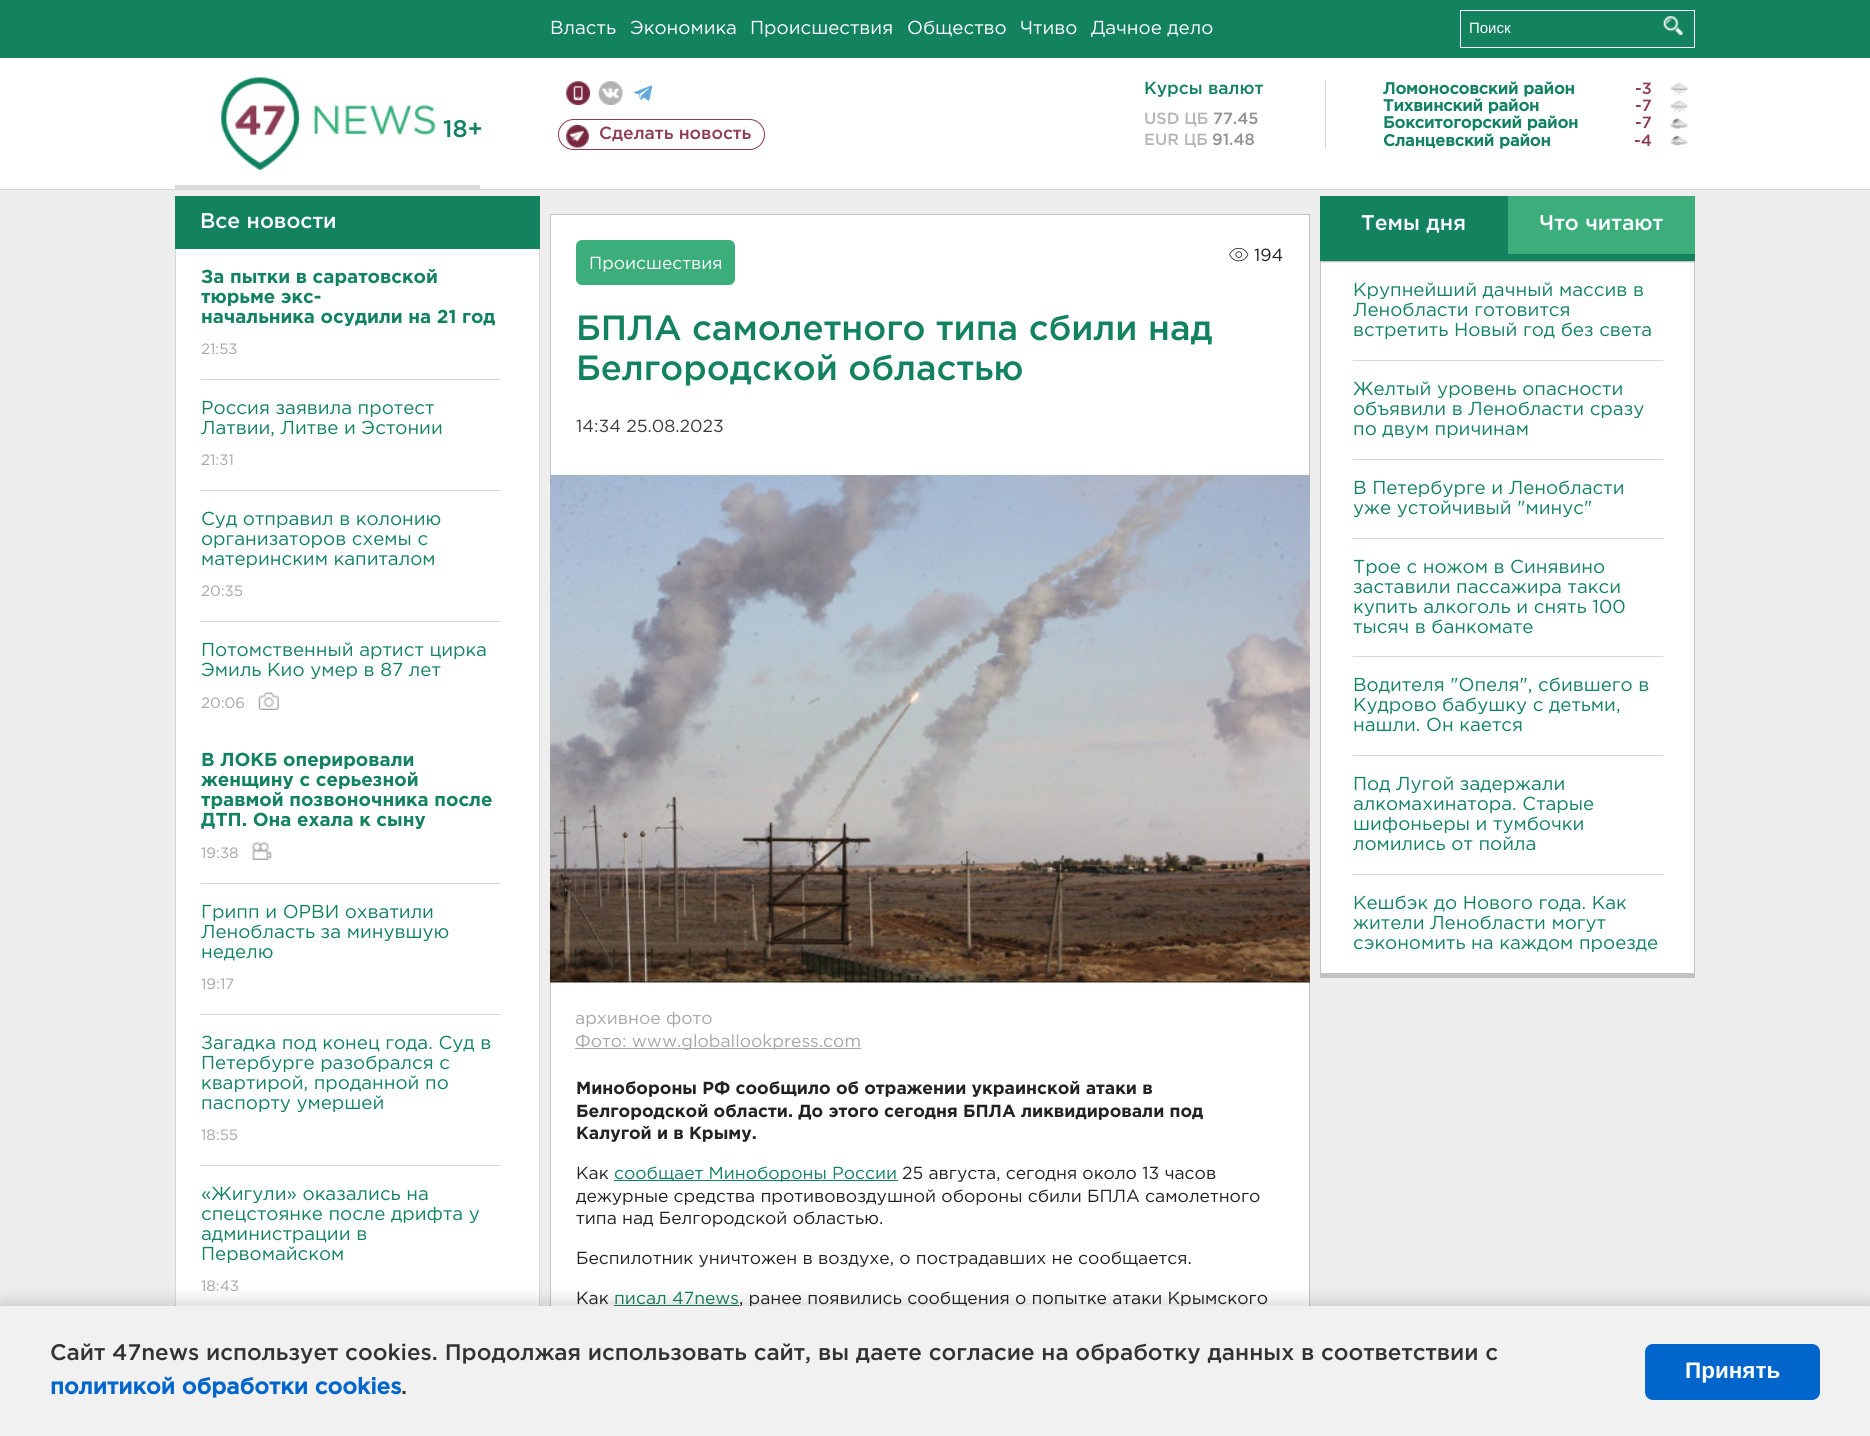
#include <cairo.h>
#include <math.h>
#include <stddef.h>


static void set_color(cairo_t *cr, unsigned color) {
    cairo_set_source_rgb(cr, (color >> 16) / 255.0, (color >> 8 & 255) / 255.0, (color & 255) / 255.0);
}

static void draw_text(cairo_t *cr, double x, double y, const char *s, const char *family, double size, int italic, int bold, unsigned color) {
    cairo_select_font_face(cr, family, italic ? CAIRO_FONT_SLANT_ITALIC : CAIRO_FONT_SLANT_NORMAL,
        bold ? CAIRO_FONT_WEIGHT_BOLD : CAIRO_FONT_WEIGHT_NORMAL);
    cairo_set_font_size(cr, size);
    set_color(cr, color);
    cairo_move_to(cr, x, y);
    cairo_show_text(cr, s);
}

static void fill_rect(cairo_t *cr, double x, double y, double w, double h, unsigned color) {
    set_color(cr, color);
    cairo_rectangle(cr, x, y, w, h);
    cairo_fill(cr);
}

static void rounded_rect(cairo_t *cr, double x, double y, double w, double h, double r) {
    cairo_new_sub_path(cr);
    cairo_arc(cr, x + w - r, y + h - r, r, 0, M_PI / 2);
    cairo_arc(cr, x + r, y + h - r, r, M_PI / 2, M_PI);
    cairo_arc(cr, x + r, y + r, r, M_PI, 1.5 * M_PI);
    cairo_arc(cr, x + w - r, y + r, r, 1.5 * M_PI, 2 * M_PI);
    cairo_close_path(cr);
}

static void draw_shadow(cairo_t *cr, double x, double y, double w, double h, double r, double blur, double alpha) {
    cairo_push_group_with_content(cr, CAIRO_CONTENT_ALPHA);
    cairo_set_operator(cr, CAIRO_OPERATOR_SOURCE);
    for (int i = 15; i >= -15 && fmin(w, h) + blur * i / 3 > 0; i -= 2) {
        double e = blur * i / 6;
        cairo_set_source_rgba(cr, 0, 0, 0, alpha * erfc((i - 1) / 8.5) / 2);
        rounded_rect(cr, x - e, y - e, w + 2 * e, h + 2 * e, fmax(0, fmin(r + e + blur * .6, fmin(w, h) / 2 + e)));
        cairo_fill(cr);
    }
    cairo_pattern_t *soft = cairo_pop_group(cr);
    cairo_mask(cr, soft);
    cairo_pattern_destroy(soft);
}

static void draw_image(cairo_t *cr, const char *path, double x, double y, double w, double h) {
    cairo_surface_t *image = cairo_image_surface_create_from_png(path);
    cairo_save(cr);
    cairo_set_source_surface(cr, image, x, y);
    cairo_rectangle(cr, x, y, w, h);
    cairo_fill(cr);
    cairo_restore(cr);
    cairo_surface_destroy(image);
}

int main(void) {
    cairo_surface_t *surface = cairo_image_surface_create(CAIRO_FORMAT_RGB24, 1870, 1436);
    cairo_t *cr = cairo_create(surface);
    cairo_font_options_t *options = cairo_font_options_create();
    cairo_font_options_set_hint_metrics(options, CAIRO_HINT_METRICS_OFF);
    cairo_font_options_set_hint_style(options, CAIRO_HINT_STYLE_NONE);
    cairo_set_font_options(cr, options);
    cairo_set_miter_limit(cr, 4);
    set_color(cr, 0xEEEEEE);
    cairo_paint(cr);
    fill_rect(cr, 0, 0, 1870, 58, 0x13825F);
    draw_text(cr, 550, 34, "Власть", "Gotham", 18.75, 0, 0, 0xFFFFFF);
    draw_text(cr, 630, 34, "Экономика", "Gotham", 18.75, 0, 0, 0xFFFFFF);
    draw_text(cr, 750, 34, "Происшествия", "Gotham", 18.75, 0, 0, 0xFFFFFF);
    draw_text(cr, 907, 34, "Общество", "Gotham", 18.75, 0, 0, 0xFFFFFF);
    draw_text(cr, 1020, 34, "Чтиво", "Gotham", 18.75, 0, 0, 0xFFFFFF);
    draw_text(cr, 1091, 34, "Дачное дело", "Gotham", 18.75, 0, 0, 0xFFFFFF);
    cairo_rectangle(cr, 1460.5, 10.5, 234, 37);
    cairo_set_line_width(cr, 1);
    cairo_stroke(cr);
    draw_text(cr, 1469, 33, "Поиск", "Liberation Sans", 15, 0, 0, 0xFFFFFF);
    draw_image(cr, "assets/img1.png", 1663, 16, 20, 19);
    fill_rect(cr, 0, 58, 1870, 131, 0xFFFFFF);
    fill_rect(cr, 0, 189, 1870, 1, 0xDAD9D9);
    fill_rect(cr, 175, 185, 305, 4, 0xDAD9D9);
    draw_image(cr, "assets/img2.png", 221, 77, 214, 93);
    draw_text(cr, 1144, 94, "Курсы валют", "Gotham Medium", 17.5, 0, 0, 0x13825F);
    draw_text(cr, 1144, 124, "USD ЦБ", "Gotham Medium", 16.25, 0, 0, 0xB5B5B5);
    draw_text(cr, 1213, 124, "77.45", "Gotham Medium", 16.25, 0, 0, 0x919191);
    draw_text(cr, 1144, 145, "EUR ЦБ", "Gotham Medium", 16.25, 0, 0, 0xB5B5B5);
    draw_text(cr, 1212, 145, "91.48", "Gotham Medium", 16.25, 0, 0, 0x919191);
    fill_rect(cr, 1325, 81, 1, 68, 0xD6D6D6);
    draw_text(cr, 1383, 94, "Ломоносовский район", "Gotham", 16.25, 0, 1, 0x13825F);
    draw_text(cr, 1635, 94, "-3", "Gotham Medium", 16.25, 0, 0, 0x8C3B52);
    draw_image(cr, "assets/img3.png", 1670, 82, 18, 14);
    draw_text(cr, 1383, 111, "Тихвинский район", "Gotham", 16.25, 0, 1, 0x13825F);
    draw_text(cr, 1635, 111, "-7", "Gotham Medium", 16.25, 0, 0, 0x8C3B52);
    draw_image(cr, "assets/img4.png", 1670, 100, 18, 14);
    draw_text(cr, 1383, 128, "Бокситогорский район", "Gotham", 16.25, 0, 1, 0x13825F);
    draw_text(cr, 1635, 128, "-7", "Gotham Medium", 16.25, 0, 0, 0x8C3B52);
    draw_image(cr, "assets/img5.png", 1670, 118, 18, 11);
    draw_text(cr, 1383, 146, "Сланцевский район", "Gotham", 16.25, 0, 1, 0x13825F);
    draw_text(cr, 1634, 146, "-4", "Gotham Medium", 16.25, 0, 0, 0x8C3B52);
    draw_image(cr, "assets/img6.png", 1670, 135, 18, 11);
    draw_text(cr, 443, 137, "18+", "Gotham Medium", 24, 0, 0, 0x13825F);
    draw_image(cr, "assets/img7.png", 566, 81, 24, 24);
    draw_image(cr, "assets/img8.png", 598, 81, 25, 24);
    draw_image(cr, "assets/img9.png", 634, 85, 19, 16);
    draw_image(cr, "assets/img10.png", 566, 125, 23, 23);
    rounded_rect(cr, 558.5, 119.5, 206, 30, 15);
    set_color(cr, 0x8C3B52);
    cairo_stroke(cr);
    draw_text(cr, 599, 139, "Сделать новость", "Gotham Medium", 17.5, 0, 0, 0x8C3B52);
    fill_rect(cr, 175, 196, 365, 53, 0x13825F);
    draw_text(cr, 200, 228, "Все новости", "Gotham Medium", 21.25, 0, 0, 0xFFFFFF);
    fill_rect(cr, 176, 249, 363, 1057, 0xFFFFFF);
    fill_rect(cr, 539, 249, 1, 1057, 0xD6D6D6);
    fill_rect(cr, 175, 249, 1, 1057, 0xD6D6D6);
    fill_rect(cr, 201, 379, 299, 1, 0xD8D8D8);
    draw_text(cr, 201, 283, "За пытки в саратовской", "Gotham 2", 18.75, 0, 1, 0x13825F);
    draw_text(cr, 201, 303, "тюрьме экс-", "Gotham 2", 18.75, 0, 1, 0x13825F);
    draw_text(cr, 201, 323, "начальника осудили на 21 год", "Gotham 2", 18.75, 0, 1, 0x13825F);
    draw_text(cr, 201, 354, "21:53", "Gotham", 15, 0, 0, 0xA7A7A7);
    fill_rect(cr, 201, 490, 299, 1, 0xD8D8D8);
    draw_text(cr, 201, 414, "Россия заявила протест", "Gotham", 18.75, 0, 0, 0x13825F);
    draw_text(cr, 201, 434, "Латвии, Литве и Эстонии", "Gotham", 18.75, 0, 0, 0x13825F);
    draw_text(cr, 201, 465, "21:31", "Gotham", 15, 0, 0, 0xA7A7A7);
    fill_rect(cr, 201, 621, 299, 1, 0xD8D8D8);
    draw_text(cr, 201, 525, "Суд отправил в колонию", "Gotham", 18.75, 0, 0, 0x13825F);
    draw_text(cr, 201, 545, "организаторов схемы с", "Gotham", 18.75, 0, 0, 0x13825F);
    draw_text(cr, 201, 565, "материнским капиталом", "Gotham", 18.75, 0, 0, 0x13825F);
    draw_text(cr, 201, 596, "20:35", "Gotham", 15, 0, 0, 0xA7A7A7);
    draw_text(cr, 201, 656, "Потомственный артист цирка", "Gotham", 18.75, 0, 0, 0x13825F);
    draw_text(cr, 201, 676, "Эмиль Кио умер в 87 лет", "Gotham", 18.75, 0, 0, 0x13825F);
    draw_text(cr, 201, 708, "20:06", "Gotham", 15, 0, 0, 0xA7A7A7);
    draw_image(cr, "assets/img11.png", 258, 692, 21, 18);
    fill_rect(cr, 201, 883, 299, 1, 0xD8D8D8);
    draw_text(cr, 201, 766, "В ЛОКБ оперировали", "Gotham 2", 18.75, 0, 1, 0x13825F);
    draw_text(cr, 201, 786, "женщину с серьезной", "Gotham 2", 18.75, 0, 1, 0x13825F);
    draw_text(cr, 201, 806, "травмой позвоночника после", "Gotham 2", 18.75, 0, 1, 0x13825F);
    draw_text(cr, 201, 826, "ДТП. Она ехала к сыну", "Gotham 2", 18.75, 0, 1, 0x13825F);
    draw_text(cr, 201, 858, "19:38", "Gotham", 15, 0, 0, 0xA7A7A7);
    draw_image(cr, "assets/img12.png", 252, 842, 20, 18);
    fill_rect(cr, 201, 1014, 299, 1, 0xD8D8D8);
    draw_text(cr, 201, 918, "Грипп и ОРВИ охватили", "Gotham", 18.75, 0, 0, 0x13825F);
    draw_text(cr, 201, 938, "Ленобласть за минувшую", "Gotham", 18.75, 0, 0, 0x13825F);
    draw_text(cr, 201, 958, "неделю", "Gotham", 18.75, 0, 0, 0x13825F);
    draw_text(cr, 201, 989, "19:17", "Gotham", 15, 0, 0, 0xA7A7A7);
    fill_rect(cr, 201, 1165, 299, 1, 0xD8D8D8);
    draw_text(cr, 201, 1049, "Загадка под конец года. Суд в", "Gotham", 18.75, 0, 0, 0x13825F);
    draw_text(cr, 201, 1069, "Петербурге разобрался с", "Gotham", 18.75, 0, 0, 0x13825F);
    draw_text(cr, 201, 1089, "квартирой, проданной по", "Gotham", 18.75, 0, 0, 0x13825F);
    draw_text(cr, 201, 1109, "паспорту умершей", "Gotham", 18.75, 0, 0, 0x13825F);
    draw_text(cr, 201, 1140, "18:55", "Gotham", 15, 0, 0, 0xA7A7A7);
    draw_text(cr, 201, 1200, "«Жигули» оказались на", "Gotham", 18.75, 0, 0, 0x13825F);
    draw_text(cr, 201, 1220, "спецстоянке после дрифта у", "Gotham", 18.75, 0, 0, 0x13825F);
    draw_text(cr, 201, 1240, "администрации в", "Gotham", 18.75, 0, 0, 0x13825F);
    draw_text(cr, 201, 1260, "Первомайском", "Gotham", 18.75, 0, 0, 0x13825F);
    draw_text(cr, 201, 1291, "18:43", "Gotham", 15, 0, 0, 0xA7A7A7);
    fill_rect(cr, 551, 215, 758, 1091, 0xFFFFFF);
    cairo_rectangle(cr, 550.5, 214.5, 759, 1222);
    set_color(cr, 0xC2C2C2);
    cairo_stroke(cr);
    set_color(cr, 0x3BAE7C);
    rounded_rect(cr, 576, 240, 159, 45, 6);
    cairo_fill(cr);
    draw_text(cr, 589, 269, "Происшествия", "Gotham", 17.5, 0, 0, 0xFFFFFF);
    draw_image(cr, "assets/img13.png", 1229, 247, 20, 15);
    draw_text(cr, 1254, 261, "194", "Gotham", 17.5, 0, 0, 0x222222);
    draw_text(cr, 576, 340, "БПЛА самолетного типа сбили над", "Gotham Medium", 35, 0, 0, 0x13825F);
    draw_text(cr, 576, 380, "Белгородской областью", "Gotham Medium", 35, 0, 0, 0x13825F);
    draw_text(cr, 576, 432, "14:34 25.08.2023", "Gotham", 17.5, 0, 0, 0x3C3C3C);
    draw_image(cr, "assets/img14.png", 550, 475, 760, 508);
    draw_text(cr, 575, 1024, "архивное фото", "Gotham", 17.5, 0, 0, 0xA7A7A7);
    fill_rect(cr, 575, 1048, 286, 1, 0xA7A7A7);
    draw_text(cr, 575, 1047, "Фото: www.globallookpress.com", "Gotham", 17.5, 0, 0, 0xA7A7A7);
    draw_text(cr, 576, 1094, "Минобороны РФ сообщило об отражении украинской атаки в", "Gotham 2", 17.5, 0, 1, 0x222222);
    draw_text(cr, 576, 1117, "Белгородской области. До этого сегодня БПЛА ликвидировали под", "Gotham 2", 17.5, 0, 1, 0x222222);
    draw_text(cr, 576, 1139, "Калугой и в Крыму.", "Gotham 2", 17.5, 0, 1, 0x222222);
    draw_text(cr, 576, 1179, "Как", "Gotham", 17.5, 0, 0, 0x222222);
    fill_rect(cr, 614, 1180, 284, 1, 0x13825F);
    draw_text(cr, 614, 1179, "сообщает Минобороны России", "Gotham", 17.5, 0, 0, 0x13825F);
    draw_text(cr, 902, 1179, "25 августа, сегодня около 13 часов", "Gotham", 17.5, 0, 0, 0x222222);
    draw_text(cr, 576, 1202, "дежурные средства противовоздушной обороны сбили БПЛА самолетного", "Gotham", 17.5, 0, 0, 0x222222);
    draw_text(cr, 576, 1224, "типа над Белгородской областью.", "Gotham", 17.5, 0, 0, 0x222222);
    draw_text(cr, 576, 1264, "Беспилотник уничтожен в воздухе, о пострадавших не сообщается.", "Gotham", 17.5, 0, 0, 0x222222);
    draw_text(cr, 576, 1304, "Как", "Gotham", 17.5, 0, 0, 0x222222);
    draw_text(cr, 614, 1304, "писал 47news", "Gotham", 17.5, 0, 0, 0x13825F);
    fill_rect(cr, 614, 1305, 125, 1, 0x13825F);
    draw_text(cr, 739, 1304, ", ранее появились сообщения о попытке атаки Крымского", "Gotham", 17.5, 0, 0, 0x222222);
    fill_rect(cr, 1320, 196, 375, 65, 0x13825F);
    draw_text(cr, 1361, 230, "Темы дня", "Gotham Medium", 21.25, 0, 0, 0xFFFFFF);
    fill_rect(cr, 1508, 196, 187, 58, 0x3BAE7C);
    draw_text(cr, 1539, 230, "Что читают", "Gotham Medium", 21.25, 0, 0, 0xFFFFFF);
    fill_rect(cr, 1321, 263, 373, 710, 0xFFFFFF);
    fill_rect(cr, 1320, 261, 375, 1, 0xC2C2C2);
    fill_rect(cr, 1694, 261, 1, 717, 0xC2C2C2);
    fill_rect(cr, 1320, 973, 375, 5, 0xC2C2C2);
    fill_rect(cr, 1320, 261, 1, 717, 0xC2C2C2);
    fill_rect(cr, 1353, 360, 310, 1, 0xD8D8D8);
    draw_text(cr, 1353, 296, "Крупнейший дачный массив в", "Gotham", 18.75, 0, 0, 0x13825F);
    draw_text(cr, 1353, 316, "Ленобласти готовится", "Gotham", 18.75, 0, 0, 0x13825F);
    draw_text(cr, 1353, 336, "встретить Новый год без света", "Gotham", 18.75, 0, 0, 0x13825F);
    fill_rect(cr, 1353, 459, 310, 1, 0xD8D8D8);
    draw_text(cr, 1353, 395, "Желтый уровень опасности", "Gotham", 18.75, 0, 0, 0x13825F);
    draw_text(cr, 1353, 415, "объявили в Ленобласти сразу", "Gotham", 18.75, 0, 0, 0x13825F);
    draw_text(cr, 1353, 435, "по двум причинам", "Gotham", 18.75, 0, 0, 0x13825F);
    fill_rect(cr, 1353, 538, 310, 1, 0xD8D8D8);
    draw_text(cr, 1353, 494, "В Петербурге и Ленобласти", "Gotham", 18.75, 0, 0, 0x13825F);
    draw_text(cr, 1353, 514, "уже устойчивый \"минус\"", "Gotham", 18.75, 0, 0, 0x13825F);
    fill_rect(cr, 1353, 656, 310, 1, 0xD8D8D8);
    draw_text(cr, 1353, 573, "Трое с ножом в Синявино", "Gotham", 18.75, 0, 0, 0x13825F);
    draw_text(cr, 1353, 593, "заставили пассажира такси", "Gotham", 18.75, 0, 0, 0x13825F);
    draw_text(cr, 1353, 613, "купить алкоголь и снять 100", "Gotham", 18.75, 0, 0, 0x13825F);
    draw_text(cr, 1353, 633, "тысяч в банкомате", "Gotham", 18.75, 0, 0, 0x13825F);
    fill_rect(cr, 1353, 755, 310, 1, 0xD8D8D8);
    draw_text(cr, 1353, 691, "Водителя \"Опеля\", сбившего в", "Gotham", 18.75, 0, 0, 0x13825F);
    draw_text(cr, 1353, 711, "Кудрово бабушку с детьми,", "Gotham", 18.75, 0, 0, 0x13825F);
    draw_text(cr, 1353, 731, "нашли. Он кается", "Gotham", 18.75, 0, 0, 0x13825F);
    fill_rect(cr, 1353, 874, 310, 1, 0xD8D8D8);
    draw_text(cr, 1353, 790, "Под Лугой задержали", "Gotham", 18.75, 0, 0, 0x13825F);
    draw_text(cr, 1353, 810, "алкомахинатора. Старые", "Gotham", 18.75, 0, 0, 0x13825F);
    draw_text(cr, 1353, 830, "шифоньеры и тумбочки", "Gotham", 18.75, 0, 0, 0x13825F);
    draw_text(cr, 1353, 850, "ломились от пойла", "Gotham", 18.75, 0, 0, 0x13825F);
    draw_text(cr, 1353, 909, "Кешбэк до Нового года. Как", "Gotham", 18.75, 0, 0, 0x13825F);
    draw_text(cr, 1353, 929, "жители Ленобласти могут", "Gotham", 18.75, 0, 0, 0x13825F);
    draw_text(cr, 1353, 949, "сэкономить на каждом проезде", "Gotham", 18.75, 0, 0, 0x13825F);
    set_color(cr, 0x000000);
    draw_shadow(cr, 0, 1304, 1870, 130, 0, 9.5, 0.2);
    fill_rect(cr, 0, 1306, 1870, 130, 0xF1F1F1);
    draw_text(cr, 50, 1360, "Сайт 47news использует cookies. Продолжая использовать сайт, вы даете согласие на обработку данных в соответствии с", "Gotham Medium", 22.5, 0, 0, 0x333333);
    draw_text(cr, 50, 1394, "политикой обработки cookies", "Gotham", 22.5, 0, 1, 0x0066CC);
    draw_text(cr, 401, 1394, ".", "Gotham Medium", 22.5, 0, 0, 0x333333);
    set_color(cr, 0x0066CC);
    rounded_rect(cr, 1645, 1344, 175, 56, 8);
    cairo_fill(cr);
    draw_text(cr, 1685, 1378, "Принять", "Liberation Sans", 22.5, 0, 1, 0xFFFFFF);
    cairo_surface_write_to_png(surface, "output.png");
    cairo_font_options_destroy(options);
    cairo_destroy(cr);
    cairo_surface_destroy(surface);
    return 0;
}
